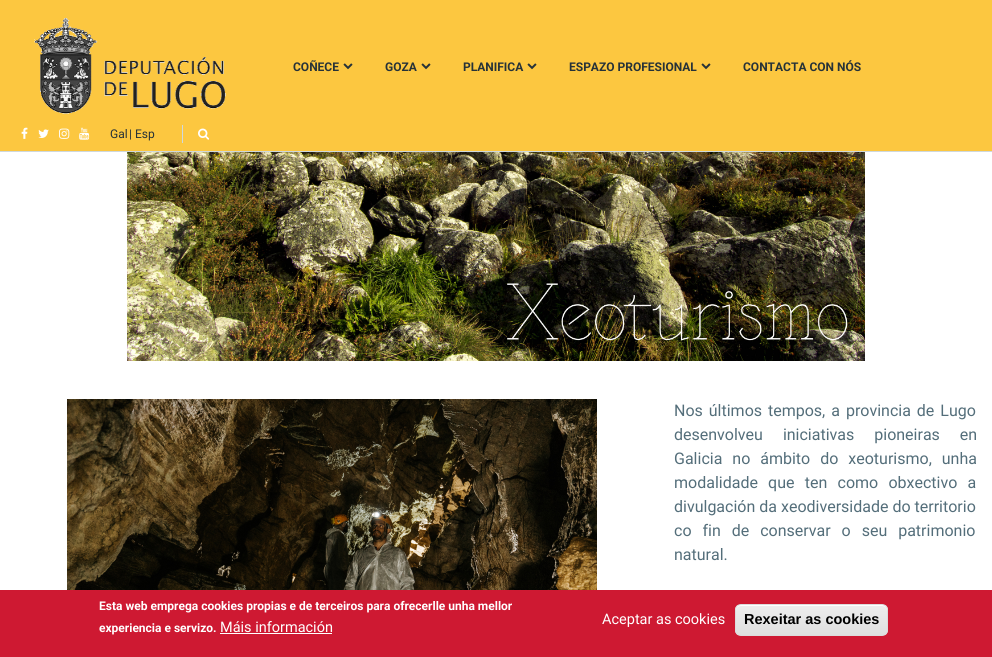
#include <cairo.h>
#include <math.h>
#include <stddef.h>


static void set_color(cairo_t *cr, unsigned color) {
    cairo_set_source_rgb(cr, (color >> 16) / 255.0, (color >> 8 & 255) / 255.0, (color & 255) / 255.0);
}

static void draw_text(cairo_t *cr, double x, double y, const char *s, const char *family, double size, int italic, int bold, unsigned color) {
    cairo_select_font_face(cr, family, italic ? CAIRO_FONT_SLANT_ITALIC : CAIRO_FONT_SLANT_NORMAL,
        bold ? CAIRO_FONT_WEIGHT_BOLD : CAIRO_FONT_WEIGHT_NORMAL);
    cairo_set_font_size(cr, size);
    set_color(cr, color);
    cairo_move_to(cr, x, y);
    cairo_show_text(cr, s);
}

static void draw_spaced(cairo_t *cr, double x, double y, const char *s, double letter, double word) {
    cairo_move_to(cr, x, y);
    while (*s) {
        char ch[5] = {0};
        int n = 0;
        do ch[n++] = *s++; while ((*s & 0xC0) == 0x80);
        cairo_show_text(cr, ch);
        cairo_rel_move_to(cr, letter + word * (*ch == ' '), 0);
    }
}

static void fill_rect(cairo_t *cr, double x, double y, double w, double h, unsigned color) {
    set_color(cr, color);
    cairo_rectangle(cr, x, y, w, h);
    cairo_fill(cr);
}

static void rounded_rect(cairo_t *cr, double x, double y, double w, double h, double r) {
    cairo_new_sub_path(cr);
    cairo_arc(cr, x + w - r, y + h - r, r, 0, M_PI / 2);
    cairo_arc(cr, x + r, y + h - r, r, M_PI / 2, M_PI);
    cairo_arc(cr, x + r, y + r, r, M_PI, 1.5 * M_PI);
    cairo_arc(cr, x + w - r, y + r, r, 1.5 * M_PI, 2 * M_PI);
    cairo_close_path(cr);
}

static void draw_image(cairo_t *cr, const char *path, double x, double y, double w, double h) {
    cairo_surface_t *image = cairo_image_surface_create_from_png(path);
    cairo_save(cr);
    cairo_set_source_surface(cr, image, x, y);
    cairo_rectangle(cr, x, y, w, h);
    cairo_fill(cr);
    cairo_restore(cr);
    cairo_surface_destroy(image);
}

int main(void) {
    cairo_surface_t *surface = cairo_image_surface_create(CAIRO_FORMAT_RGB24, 992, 657);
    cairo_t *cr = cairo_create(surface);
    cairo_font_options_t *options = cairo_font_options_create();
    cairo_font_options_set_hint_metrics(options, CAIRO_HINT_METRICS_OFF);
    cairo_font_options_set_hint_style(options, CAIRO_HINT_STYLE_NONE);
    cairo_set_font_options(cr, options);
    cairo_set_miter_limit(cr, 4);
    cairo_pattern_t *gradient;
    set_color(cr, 0xFFFFFF);
    cairo_paint(cr);
    fill_rect(cr, 0, 0, 992, 151, 0xFCC740);
    fill_rect(cr, 0, 151, 992, 1, 0xCFD8DC);
    draw_image(cr, "assets/img1.png", 34, 18, 192, 96);
    draw_text(cr, 293, 71, "COÑECE", "Roboto", 12, 0, 1, 0x263238);
    draw_image(cr, "assets/img2.png", 343, 63, 10, 7);
    draw_text(cr, 385, 71, "GOZA", "Roboto", 12, 0, 1, 0x263238);
    draw_image(cr, "assets/img2.png", 421, 63, 10, 7);
    draw_text(cr, 463, 71, "PLANIFICA", "Roboto", 12, 0, 1, 0x263238);
    draw_image(cr, "assets/img2.png", 527, 63, 10, 7);
    draw_text(cr, 569, 71, "ESPAZO PROFESIONAL", "Roboto", 12, 0, 1, 0x263238);
    draw_image(cr, "assets/img2.png", 701, 63, 10, 7);
    draw_text(cr, 743, 71, "CONTACTA CON NÓS", "Roboto", 12, 0, 1, 0x263238);
    draw_image(cr, "assets/img3.png", 21, 127, 7, 12);
    draw_image(cr, "assets/img4.png", 38, 129, 11, 9);
    draw_image(cr, "assets/img5.png", 59, 128, 11, 11);
    draw_image(cr, "assets/img6.png", 79, 127, 11, 13);
    draw_text(cr, 110, 138, "Gal", "Roboto", 12, 0, 0, 0x263238);
    draw_text(cr, 129, 138, "| Esp", "Roboto", 12, 0, 0, 0x263238);
    fill_rect(cr, 182, 125, 1, 18, 0xCFD8DC);
    draw_image(cr, "assets/img7.png", 198, 128, 12, 12);
    draw_image(cr, "assets/img8.png", 127, 152, 738, 209);
    draw_image(cr, "assets/img9.png", 67, 399, 530, 191);
    cairo_set_font_size(cr, 16);
    set_color(cr, 0x546E7A);
    draw_spaced(cr, 674, 416, "Nos últimos tempos, a provincia de Lugo", 0, 2);
    draw_spaced(cr, 674, 440, "desenvolveu iniciativas pioneiras en", 0, 16);
    draw_spaced(cr, 674, 464, "Galicia no ámbito do xeoturismo, unha", 0, 6);
    draw_spaced(cr, 674, 488, "modalidade que ten como obxectivo a", 0, 6.25);
    draw_text(cr, 674, 512, "divulgación da xeodiversidade do territorio", "Roboto", 16, 0, 0, 0x546E7A);
    draw_spaced(cr, 674, 536, "co fin de conservar o seu patrimonio", 0, 7);
    draw_text(cr, 674, 560, "natural.", "Roboto", 16, 0, 0, 0x546E7A);
    fill_rect(cr, 0, 590, 992, 67, 0xCE1932);
    draw_text(cr, 99, 610, "Esta web emprega cookies propias e de terceiros para ofrecerlle unha mellor", "Roboto", 12, 0, 1, 0xFFFFFF);
    draw_text(cr, 99, 632, "experiencia e servizo.", "Roboto", 12, 0, 1, 0xFFFFFF);
    draw_text(cr, 220, 632, "Máis información", "Roboto", 14.5, 0, 0, 0xFFFFFF);
    fill_rect(cr, 220, 633, 112, 1, 0xFFFFFF);
    draw_text(cr, 602, 624, "Aceptar as cookies", "Roboto", 14.5, 0, 0, 0xFFFFFF);
    cairo_save(cr);
    rounded_rect(cr, 735, 604, 153, 32, 6);
    cairo_clip(cr);
    gradient = cairo_pattern_create_linear(812, 605, 812, 635);
    cairo_pattern_add_color_stop_rgba(gradient, 0.05, 0.929, 0.929, 0.929, 1);
    cairo_pattern_add_color_stop_rgba(gradient, 1, 0.875, 0.875, 0.875, 1);
    cairo_set_source(cr, gradient);
    cairo_pattern_destroy(gradient);
    cairo_rectangle(cr, 735, 605, 153, 30);
    cairo_fill(cr);
    cairo_restore(cr);
    cairo_new_path(cr);
    cairo_move_to(cr, 741, 606);
    cairo_line_to(cr, 882, 606);
    cairo_curve_to(cr, 885, 606, 887, 608, 887, 611);
    cairo_line_to(cr, 887, 610);
    cairo_curve_to(cr, 887, 607, 885, 605, 882, 605);
    cairo_line_to(cr, 741, 605);
    cairo_curve_to(cr, 738, 605, 736, 607, 736, 610);
    cairo_line_to(cr, 736, 611);
    cairo_curve_to(cr, 736, 608, 738, 606, 741, 606);
    cairo_close_path(cr);
    cairo_fill(cr);
    rounded_rect(cr, 735.5, 604.5, 152, 31, 5.5);
    set_color(cr, 0xDCDCDC);
    cairo_set_line_width(cr, 1);
    cairo_stroke(cr);
    draw_text(cr, 744, 624, "Rexeitar as cookies", "Liberation Sans", 14.5, 0, 1, 0x000000);
    cairo_surface_write_to_png(surface, "output.png");
    cairo_font_options_destroy(options);
    cairo_destroy(cr);
    cairo_surface_destroy(surface);
    return 0;
}
